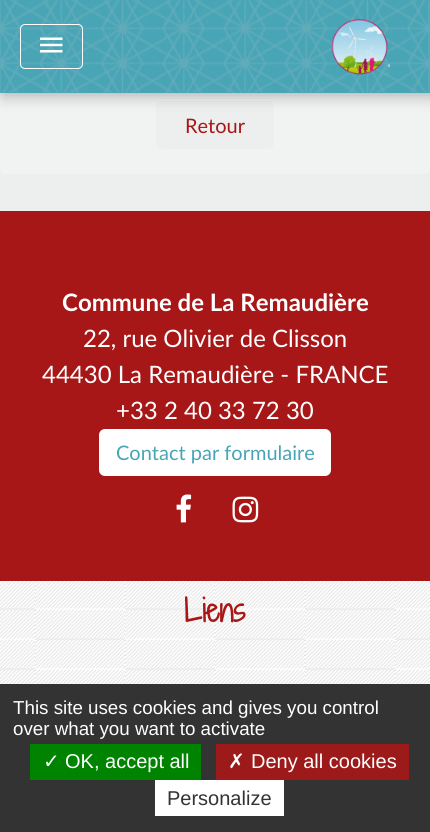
#include <cairo.h>
#include <math.h>
#include <stddef.h>


static void set_color(cairo_t *cr, unsigned color) {
    cairo_set_source_rgb(cr, (color >> 16) / 255.0, (color >> 8 & 255) / 255.0, (color & 255) / 255.0);
}

static void draw_text(cairo_t *cr, double x, double y, const char *s, const char *family, double size, int italic, int bold, unsigned color) {
    cairo_select_font_face(cr, family, italic ? CAIRO_FONT_SLANT_ITALIC : CAIRO_FONT_SLANT_NORMAL,
        bold ? CAIRO_FONT_WEIGHT_BOLD : CAIRO_FONT_WEIGHT_NORMAL);
    cairo_set_font_size(cr, size);
    set_color(cr, color);
    cairo_move_to(cr, x, y);
    cairo_show_text(cr, s);
}

static void fill_rect(cairo_t *cr, double x, double y, double w, double h, unsigned color) {
    set_color(cr, color);
    cairo_rectangle(cr, x, y, w, h);
    cairo_fill(cr);
}

static void rounded_rect(cairo_t *cr, double x, double y, double w, double h, double r) {
    cairo_new_sub_path(cr);
    cairo_arc(cr, x + w - r, y + h - r, r, 0, M_PI / 2);
    cairo_arc(cr, x + r, y + h - r, r, M_PI / 2, M_PI);
    cairo_arc(cr, x + r, y + r, r, M_PI, 1.5 * M_PI);
    cairo_arc(cr, x + w - r, y + r, r, 1.5 * M_PI, 2 * M_PI);
    cairo_close_path(cr);
}

static void draw_shadow(cairo_t *cr, double x, double y, double w, double h, double r, double blur, double alpha) {
    cairo_push_group_with_content(cr, CAIRO_CONTENT_ALPHA);
    cairo_set_operator(cr, CAIRO_OPERATOR_SOURCE);
    for (int i = 15; i >= -15 && fmin(w, h) + blur * i / 3 > 0; i -= 2) {
        double e = blur * i / 6;
        cairo_set_source_rgba(cr, 0, 0, 0, alpha * erfc((i - 1) / 8.5) / 2);
        rounded_rect(cr, x - e, y - e, w + 2 * e, h + 2 * e, fmax(0, fmin(r + e + blur * .6, fmin(w, h) / 2 + e)));
        cairo_fill(cr);
    }
    cairo_pattern_t *soft = cairo_pop_group(cr);
    cairo_mask(cr, soft);
    cairo_pattern_destroy(soft);
}

static void draw_image(cairo_t *cr, const char *path, double x, double y, double w, double h) {
    cairo_surface_t *image = cairo_image_surface_create_from_png(path);
    cairo_save(cr);
    cairo_set_source_surface(cr, image, x, y);
    cairo_rectangle(cr, x, y, w, h);
    cairo_fill(cr);
    cairo_restore(cr);
    cairo_surface_destroy(image);
}

int main(void) {
    cairo_surface_t *surface = cairo_image_surface_create(CAIRO_FORMAT_RGB24, 430, 832);
    cairo_t *cr = cairo_create(surface);
    cairo_font_options_t *options = cairo_font_options_create();
    cairo_font_options_set_hint_metrics(options, CAIRO_HINT_METRICS_OFF);
    cairo_font_options_set_hint_style(options, CAIRO_HINT_STYLE_NONE);
    cairo_set_font_options(cr, options);
    cairo_set_miter_limit(cr, 4);
    set_color(cr, 0xECEFEE);
    cairo_paint(cr);
    set_color(cr, 0xF1F3F2);
    rounded_rect(cr, 0, 16, 430, 158, 5);
    cairo_fill(cr);
    set_color(cr, 0xECEFEE);
    rounded_rect(cr, 156, 101, 118, 48, 6);
    cairo_fill(cr);
    set_color(cr, 0x000000);
    draw_shadow(cr, 3, 3, 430, 92, 0, 8, 0.3);
    fill_rect(cr, 0, 0, 430, 93, 0x47A5B6);
    draw_image(cr, "assets/img1.png", 0, 0, 430, 93);
    rounded_rect(cr, 20.5, 24.5, 62, 44, 4.5);
    set_color(cr, 0xFFFFFF);
    cairo_set_line_width(cr, 1);
    cairo_stroke(cr);
    draw_image(cr, "assets/img2.png", 40, 37, 23, 16);
    draw_image(cr, "assets/img3.png", 327, 19, 63, 59);
    draw_text(cr, 185, 133, "Retour", "Lato", 20, 0, 0, 0xA71717);
    fill_rect(cr, 0, 211, 430, 370, 0xA71717);
    draw_text(cr, 62, 311, "Commune de La Remaudière", "Lato", 24, 0, 1, 0xFFFFFF);
    draw_text(cr, 83, 347, "22, rue Olivier de Clisson", "Lato", 24, 0, 0, 0xFFFFFF);
    draw_text(cr, 42, 383, "44430 La Remaudière - FRANCE", "Lato", 24, 0, 0, 0xFFFFFF);
    draw_text(cr, 116, 419, "+33 2 40 33 72 30", "Lato", 24, 0, 0, 0xFFFFFF);
    rounded_rect(cr, 99, 429, 232, 47, 6);
    cairo_fill(cr);
    draw_text(cr, 116, 460, "Contact par formulaire", "Lato", 20, 0, 0, 0x47A5B6);
    draw_image(cr, "assets/img4.png", 176, 494, 16, 29);
    draw_image(cr, "assets/img5.png", 232, 496, 27, 27);
    fill_rect(cr, 0, 581, 430, 103, 0xFFFFFF);
    draw_image(cr, "assets/img6.png", 0, 581, 430, 103);
    draw_text(cr, 184, 622, "Liens", "Shadows Into Light Two", 30, 0, 1, 0xA71717);
    fill_rect(cr, 0, 684, 430, 148, 0x333333);
    draw_text(cr, 13, 714, "This site uses cookies and gives you control", "Liberation Sans", 18.75, 0, 0, 0xFFFFFF);
    draw_text(cr, 13, 735, "over what you want to activate", "Liberation Sans", 18.75, 0, 0, 0xFFFFFF);
    fill_rect(cr, 30, 744, 171, 36, 0x008300);
    draw_text(cr, 43, 768, "✓", "DejaVu Sans", 20, 0, 0, 0xFFFFFF);
    draw_text(cr, 65, 768, "OK, accept all", "Liberation Sans", 20, 0, 0, 0xFFFFFF);
    fill_rect(cr, 216, 744, 193, 36, 0x9C1A1A);
    draw_text(cr, 228, 768, "✗", "DejaVu Sans", 20, 0, 0, 0xFFFFFF);
    draw_text(cr, 251, 768, "Deny all cookies", "Liberation Sans", 20, 0, 0, 0xFFFFFF);
    fill_rect(cr, 155, 780, 129, 36, 0xFFFFFF);
    draw_text(cr, 167, 805, "Personalize", "Liberation Sans", 20, 0, 0, 0x333333);
    cairo_surface_write_to_png(surface, "output.png");
    cairo_font_options_destroy(options);
    cairo_destroy(cr);
    cairo_surface_destroy(surface);
    return 0;
}
